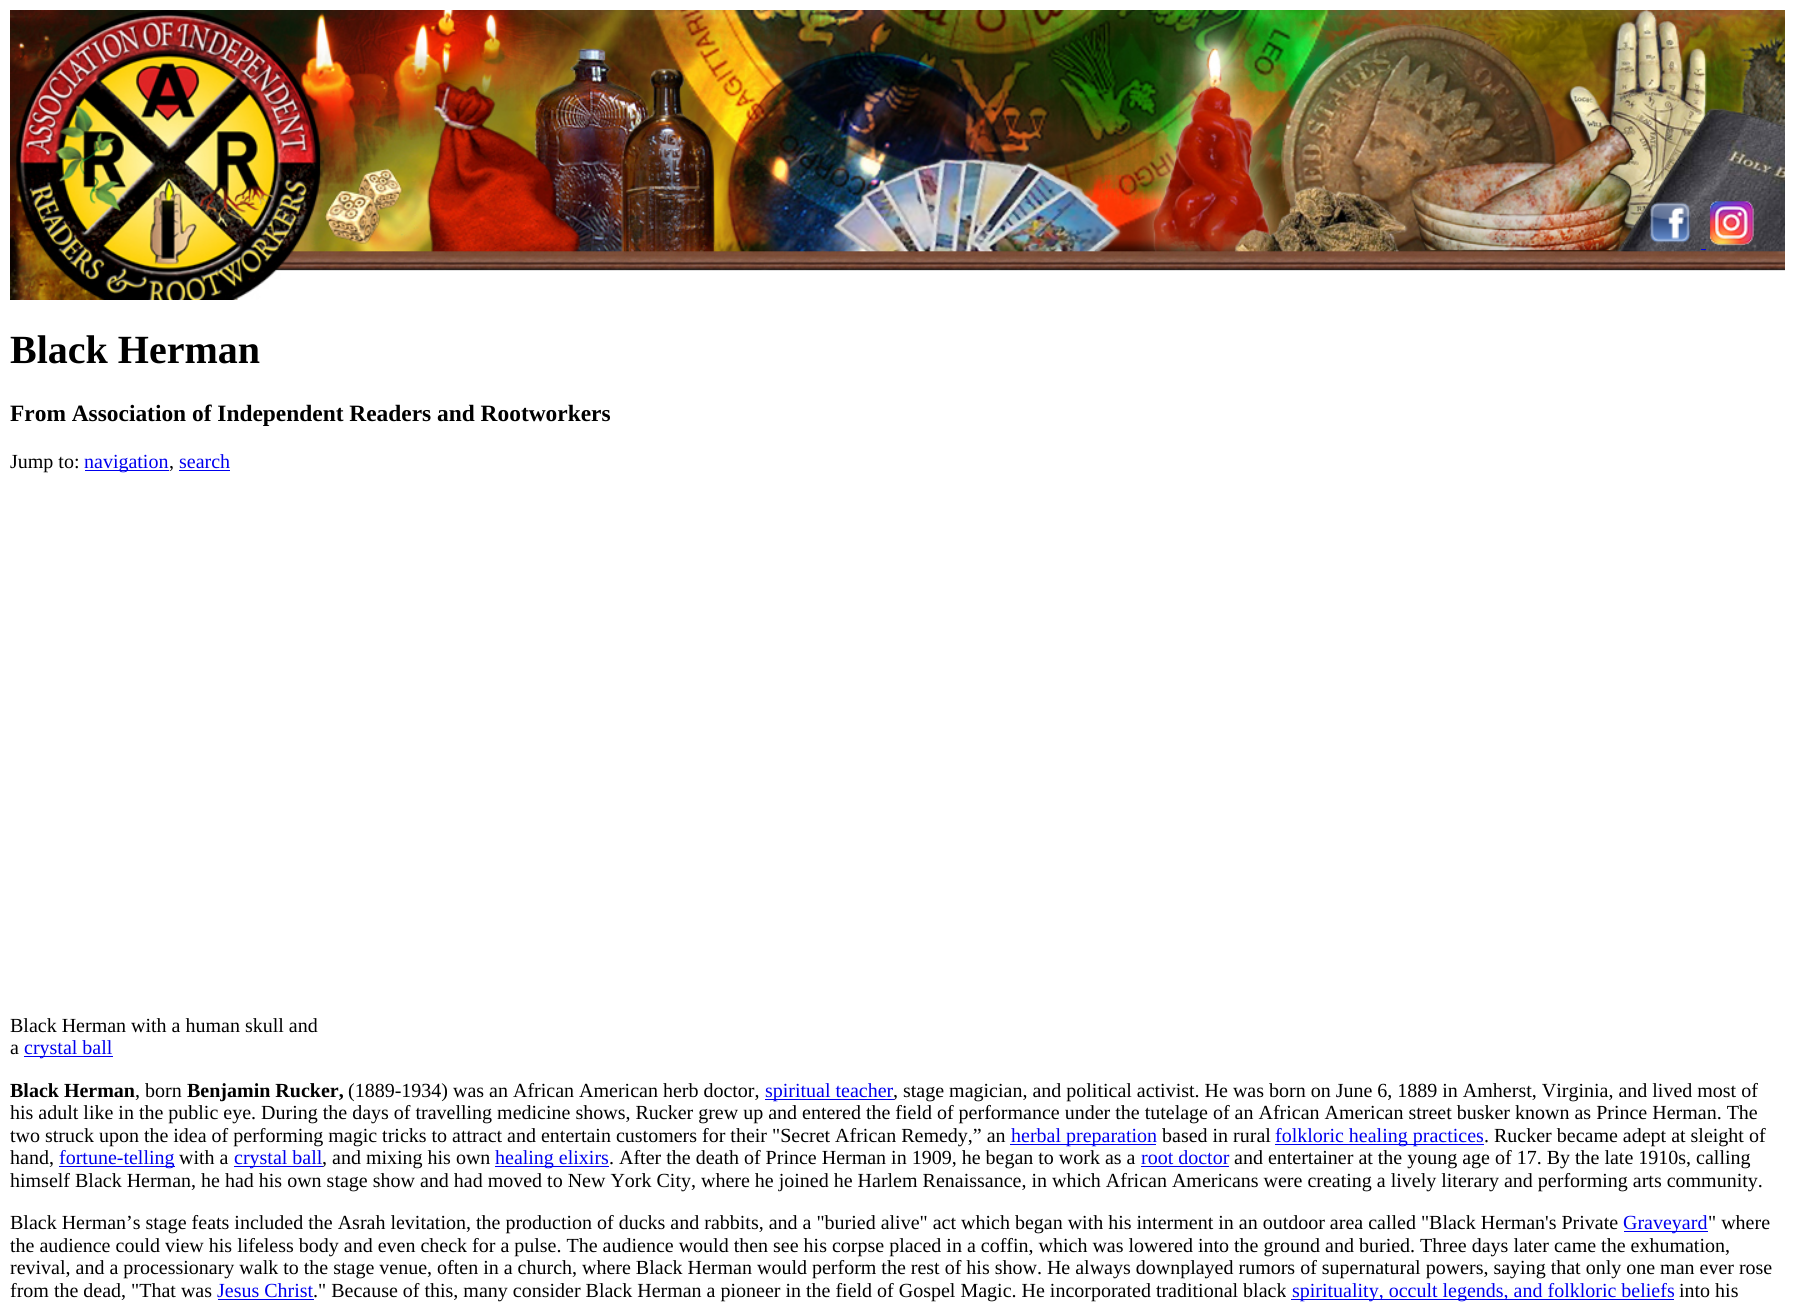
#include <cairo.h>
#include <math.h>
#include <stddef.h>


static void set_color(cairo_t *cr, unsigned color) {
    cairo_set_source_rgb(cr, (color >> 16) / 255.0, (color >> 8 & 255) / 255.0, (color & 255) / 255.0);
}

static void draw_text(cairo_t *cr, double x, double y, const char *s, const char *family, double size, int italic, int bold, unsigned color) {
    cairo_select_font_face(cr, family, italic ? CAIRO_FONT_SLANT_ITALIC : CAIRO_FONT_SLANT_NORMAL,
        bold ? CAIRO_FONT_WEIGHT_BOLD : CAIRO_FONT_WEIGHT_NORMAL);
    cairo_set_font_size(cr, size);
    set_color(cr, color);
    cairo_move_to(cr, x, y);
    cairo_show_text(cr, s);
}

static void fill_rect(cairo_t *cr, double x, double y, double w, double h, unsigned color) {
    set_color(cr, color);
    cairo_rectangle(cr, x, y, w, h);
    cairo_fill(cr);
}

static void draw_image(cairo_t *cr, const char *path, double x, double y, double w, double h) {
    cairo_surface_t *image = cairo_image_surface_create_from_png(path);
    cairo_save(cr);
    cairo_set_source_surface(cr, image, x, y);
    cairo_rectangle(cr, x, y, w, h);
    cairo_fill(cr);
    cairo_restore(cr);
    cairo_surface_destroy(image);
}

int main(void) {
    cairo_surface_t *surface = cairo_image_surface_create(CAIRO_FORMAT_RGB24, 1795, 1315);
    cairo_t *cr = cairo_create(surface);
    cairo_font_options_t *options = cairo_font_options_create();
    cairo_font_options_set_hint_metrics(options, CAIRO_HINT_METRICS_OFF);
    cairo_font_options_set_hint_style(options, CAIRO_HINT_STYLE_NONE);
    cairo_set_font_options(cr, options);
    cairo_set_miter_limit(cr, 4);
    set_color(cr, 0xFFFFFF);
    cairo_paint(cr);
    draw_image(cr, "assets/img1.png", 10, 10, 1775, 290);
    draw_image(cr, "assets/img2.png", 1649, 202, 42, 41);
    draw_image(cr, "assets/img3.png", 1709, 201, 48, 47);
    fill_rect(cr, 1701, 249, 5, 1, 0x0000EE);
    draw_text(cr, 10, 363, "Black Herman", "Liberation Serif", 40, 0, 1, 0x000000);
    draw_text(cr, 10, 421, "From Association of Independent Readers and Rootworkers", "Liberation Serif", 23.4, 0, 1, 0x000000);
    draw_text(cr, 10, 468, "Jump to:", "Liberation Serif", 20, 0, 0, 0x000000);
    fill_rect(cr, 85, 470, 84, 1, 0x0000EE);
    draw_text(cr, 84, 468, "navigation", "Liberation Serif", 20, 0, 0, 0x0000EE);
    draw_text(cr, 169, 468, ",", "Liberation Serif", 20, 0, 0, 0x000000);
    draw_text(cr, 179, 468, "search", "Liberation Serif", 20, 0, 0, 0x0000EE);
    fill_rect(cr, 179, 470, 51, 1, 0x0000EE);
    draw_text(cr, 10, 1032, "Black Herman with a human skull and", "Liberation Serif", 20, 0, 0, 0x000000);
    draw_text(cr, 10, 1054, "a", "Liberation Serif", 20, 0, 0, 0x000000);
    fill_rect(cr, 24, 1056, 89, 1, 0x0000EE);
    draw_text(cr, 24, 1054, "crystal ball", "Liberation Serif", 20, 0, 0, 0x0000EE);
    draw_text(cr, 10, 1097, "Black Herman", "Liberation Serif", 20, 0, 1, 0x000000);
    draw_text(cr, 135, 1097, ", born", "Liberation Serif", 20, 0, 0, 0x000000);
    draw_text(cr, 187, 1097, "Benjamin Rucker,", "Liberation Serif", 20, 0, 1, 0x000000);
    draw_text(cr, 348, 1097, "(1889-1934) was an African American herb doctor,", "Liberation Serif", 20, 0, 0, 0x000000);
    fill_rect(cr, 765, 1099, 129, 1, 0x0000EE);
    draw_text(cr, 765, 1097, "spiritual teacher", "Liberation Serif", 20, 0, 0, 0x0000EE);
    draw_text(cr, 893, 1097, ", stage magician, and political activist. He was born on June 6, 1889 in Amherst, Virginia, and lived most of", "Liberation Serif", 20, 0, 0, 0x000000);
    draw_text(cr, 10, 1119, "his adult like in the public eye. During the days of travelling medicine shows, Rucker grew up and entered the field of performance under the tutelage of an African American street busker known as Prince Herman. The", "Liberation Serif", 20, 0, 0, 0x000000);
    draw_text(cr, 10, 1142, "two struck upon the idea of performing magic tricks to attract and entertain customers for their \"Secret African Remedy,” an", "Liberation Serif", 20, 0, 0, 0x000000);
    fill_rect(cr, 1010, 1144, 146, 1, 0x0000EE);
    draw_text(cr, 1011, 1142, "herbal preparation", "Liberation Serif", 20, 0, 0, 0x0000EE);
    draw_text(cr, 1162, 1142, "based in rural", "Liberation Serif", 20, 0, 0, 0x000000);
    fill_rect(cr, 1275, 1144, 209, 1, 0x0000EE);
    draw_text(cr, 1275, 1142, "folkloric healing practices", "Liberation Serif", 20, 0, 0, 0x0000EE);
    draw_text(cr, 1484, 1142, ". Rucker became adept at sleight of", "Liberation Serif", 20, 0, 0, 0x000000);
    draw_text(cr, 10, 1164, "hand,", "Liberation Serif", 20, 0, 0, 0x000000);
    fill_rect(cr, 59, 1166, 116, 1, 0x0000EE);
    draw_text(cr, 59, 1164, "fortune-telling", "Liberation Serif", 20, 0, 0, 0x0000EE);
    draw_text(cr, 179, 1164, "with a", "Liberation Serif", 20, 0, 0, 0x000000);
    fill_rect(cr, 234, 1166, 89, 1, 0x0000EE);
    draw_text(cr, 234, 1164, "crystal ball", "Liberation Serif", 20, 0, 0, 0x0000EE);
    draw_text(cr, 322, 1164, ", and mixing his own", "Liberation Serif", 20, 0, 0, 0x000000);
    fill_rect(cr, 495, 1166, 114, 1, 0x0000EE);
    draw_text(cr, 495, 1164, "healing elixirs", "Liberation Serif", 20, 0, 0, 0x0000EE);
    draw_text(cr, 609, 1164, ". After the death of Prince Herman in 1909, he began to work as a", "Liberation Serif", 20, 0, 0, 0x000000);
    draw_text(cr, 1141, 1164, "root doctor", "Liberation Serif", 20, 0, 0, 0x0000EE);
    fill_rect(cr, 1141, 1166, 88, 1, 0x0000EE);
    draw_text(cr, 1234, 1164, "and entertainer at the young age of 17. By the late 1910s, calling", "Liberation Serif", 20, 0, 0, 0x000000);
    draw_text(cr, 10, 1187, "himself Black Herman, he had his own stage show and had moved to New York City, where he joined he Harlem Renaissance, in which African Americans were creating a lively literary and performing arts community.", "Liberation Serif", 20, 0, 0, 0x000000);
    draw_text(cr, 10, 1229, "Black Herman’s stage feats included the Asrah levitation, the production of ducks and rabbits, and a \"buried alive\" act which began with his interment in an outdoor area called \"Black Herman's Private", "Liberation Serif", 20, 0, 0, 0x000000);
    fill_rect(cr, 1624, 1231, 84, 1, 0x0000EE);
    draw_text(cr, 1623, 1229, "Graveyard", "Liberation Serif", 20, 0, 0, 0x0000EE);
    draw_text(cr, 1708, 1229, "\" where", "Liberation Serif", 20, 0, 0, 0x000000);
    draw_text(cr, 10, 1252, "the audience could view his lifeless body and even check for a pulse. The audience would then see his corpse placed in a coffin, which was lowered into the ground and buried. Three days later came the exhumation,", "Liberation Serif", 20, 0, 0, 0x000000);
    draw_text(cr, 10, 1274, "revival, and a processionary walk to the stage venue, often in a church, where Black Herman would perform the rest of his show. He always downplayed rumors of supernatural powers, saying that only one man ever rose", "Liberation Serif", 20, 0, 0, 0x000000);
    draw_text(cr, 10, 1297, "from the dead, \"That was", "Liberation Serif", 20, 0, 0, 0x000000);
    draw_text(cr, 217, 1297, "Jesus Christ", "Liberation Serif", 20, 0, 0, 0x0000EE);
    fill_rect(cr, 218, 1299, 96, 1, 0x0000EE);
    draw_text(cr, 313, 1297, ".\" Because of this, many consider Black Herman a pioneer in the field of Gospel Magic. He incorporated traditional black", "Liberation Serif", 20, 0, 0, 0x000000);
    fill_rect(cr, 1291, 1299, 383, 1, 0x0000EE);
    draw_text(cr, 1292, 1297, "spirituality, occult legends, and folkloric beliefs", "Liberation Serif", 20, 0, 0, 0x0000EE);
    draw_text(cr, 1679, 1297, "into his", "Liberation Serif", 20, 0, 0, 0x000000);
    cairo_surface_write_to_png(surface, "output.png");
    cairo_font_options_destroy(options);
    cairo_destroy(cr);
    cairo_surface_destroy(surface);
    return 0;
}
